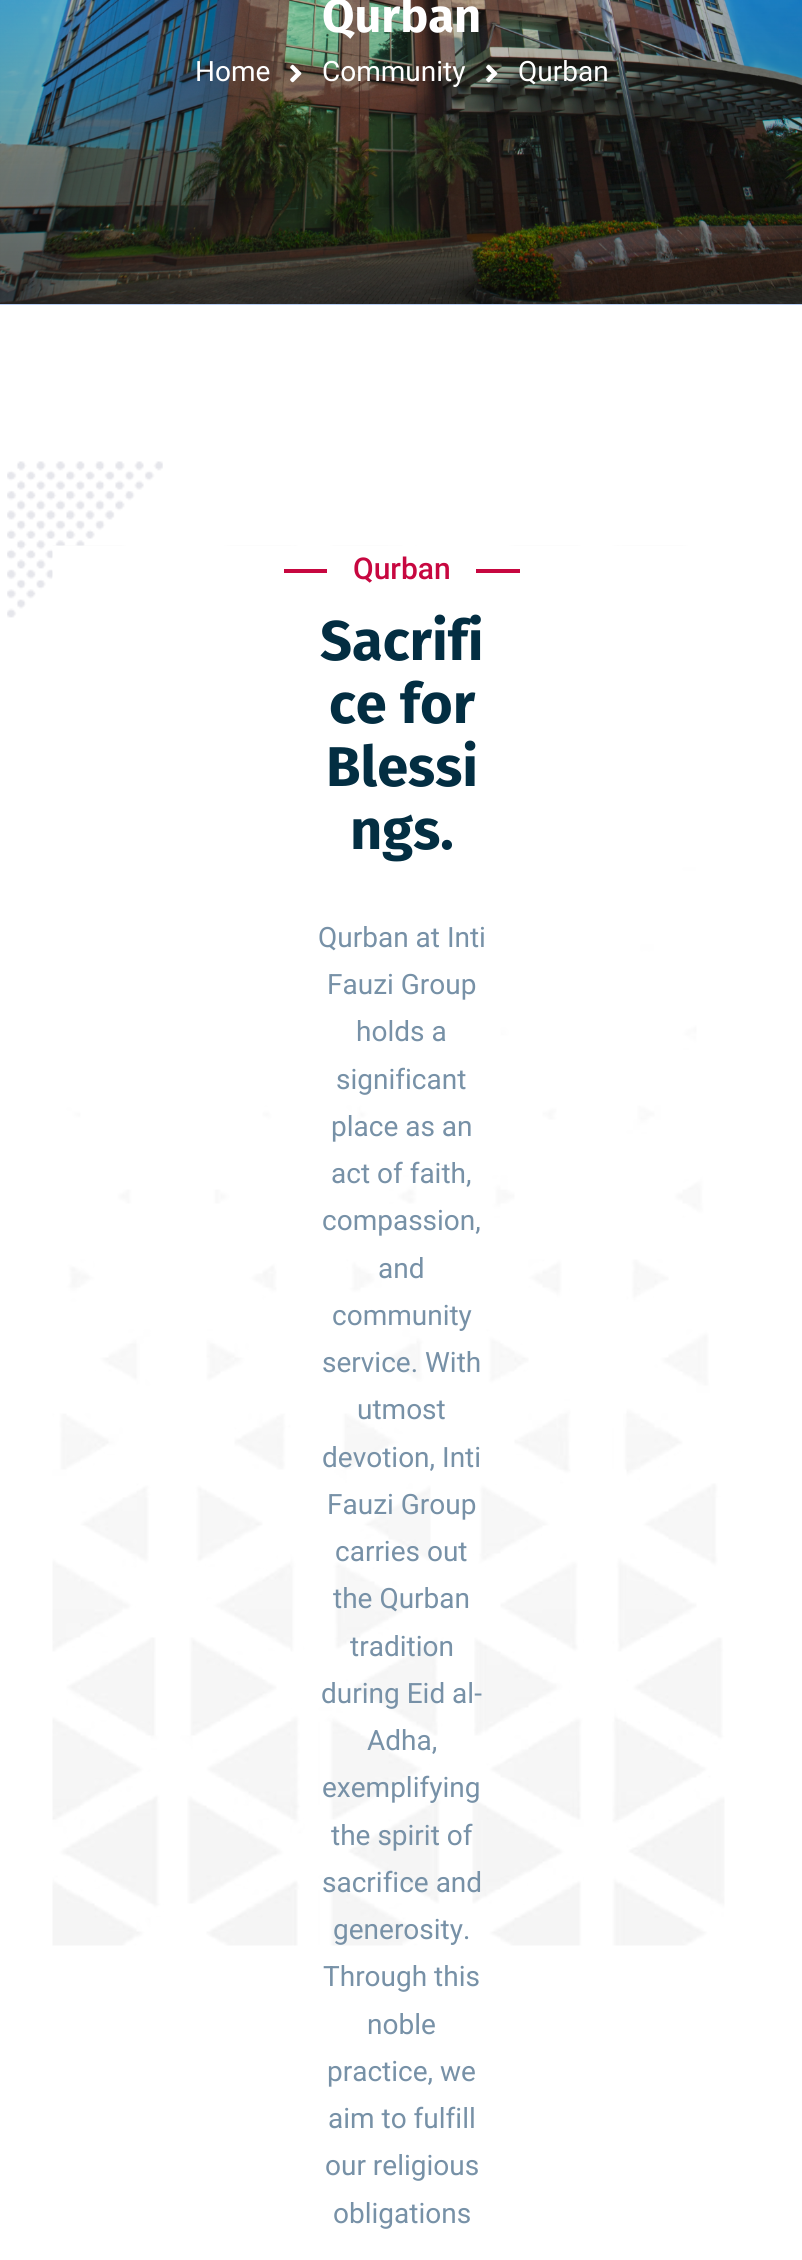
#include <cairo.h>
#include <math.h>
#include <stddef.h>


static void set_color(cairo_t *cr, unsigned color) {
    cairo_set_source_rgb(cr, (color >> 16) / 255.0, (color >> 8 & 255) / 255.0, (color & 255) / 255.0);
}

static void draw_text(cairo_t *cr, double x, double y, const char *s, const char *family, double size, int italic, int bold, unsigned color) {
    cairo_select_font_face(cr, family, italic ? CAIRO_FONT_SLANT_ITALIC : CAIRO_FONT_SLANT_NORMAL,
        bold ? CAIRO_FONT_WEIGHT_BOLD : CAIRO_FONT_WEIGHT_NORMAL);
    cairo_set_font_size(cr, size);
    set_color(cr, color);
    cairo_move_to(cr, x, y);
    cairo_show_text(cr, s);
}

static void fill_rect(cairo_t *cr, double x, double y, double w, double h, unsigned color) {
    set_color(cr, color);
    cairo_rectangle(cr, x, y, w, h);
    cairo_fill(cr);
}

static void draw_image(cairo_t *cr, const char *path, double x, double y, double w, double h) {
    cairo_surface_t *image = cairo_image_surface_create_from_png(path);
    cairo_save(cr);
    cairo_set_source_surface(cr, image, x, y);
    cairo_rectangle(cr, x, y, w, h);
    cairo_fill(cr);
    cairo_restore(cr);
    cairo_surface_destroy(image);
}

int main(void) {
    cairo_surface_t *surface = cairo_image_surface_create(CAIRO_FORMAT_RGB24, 802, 2260);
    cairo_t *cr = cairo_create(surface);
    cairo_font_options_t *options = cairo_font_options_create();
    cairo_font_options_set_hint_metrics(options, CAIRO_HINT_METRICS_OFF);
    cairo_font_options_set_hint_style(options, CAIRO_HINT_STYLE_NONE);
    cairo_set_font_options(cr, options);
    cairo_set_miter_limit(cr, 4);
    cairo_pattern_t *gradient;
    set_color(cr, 0xFFFFFF);
    cairo_paint(cr);
    gradient = cairo_pattern_create_linear(402, -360, 402, 1901);
    cairo_pattern_add_color_stop_rgba(gradient, 0.21, 0.773, 0.839, 0.969, 1);
    cairo_pattern_add_color_stop_rgba(gradient, 0.79, 0.373, 0.604, 0.867, 1);
    cairo_set_source(cr, gradient);
    cairo_pattern_destroy(gradient);
    cairo_rectangle(cr, 0, 304, 802, 1);
    cairo_fill(cr);
    draw_image(cr, "assets/img1.png", 0, 0, 802, 304);
    draw_text(cr, 322, 32, "Qurban", "Fira Sans", 47, 0, 1, 0xFFFFFF);
    draw_text(cr, 195, 81, "Home", "Roboto", 28, 0, 0, 0xFFFFFF);
    draw_image(cr, "assets/img2.png", 290, 64, 12, 19);
    draw_text(cr, 322, 81, "Community", "Roboto", 28, 0, 0, 0xFFFFFF);
    draw_image(cr, "assets/img3.png", 486, 64, 12, 19);
    draw_text(cr, 518, 81, "Qurban", "Roboto", 28, 0, 0, 0xFFFFFF);
    draw_image(cr, "assets/img4.png", 7, 461, 156, 157);
    draw_image(cr, "assets/img5.png", 52, 545, 673, 1401);
    fill_rect(cr, 284, 569, 43, 4, 0xC70740);
    draw_text(cr, 353, 579, "Qurban", "Roboto Medium", 30, 0, 0, 0xC70740);
    fill_rect(cr, 476, 569, 44, 4, 0xC70740);
    draw_text(cr, 320, 660, "Sacrifi", "Fira Sans", 56, 0, 1, 0x032E42);
    draw_text(cr, 329, 723, "ce for", "Fira Sans", 56, 0, 1, 0x032E42);
    draw_text(cr, 326, 786, "Blessi", "Fira Sans", 56, 0, 1, 0x032E42);
    draw_text(cr, 350, 849, "ngs.", "Fira Sans", 56, 0, 1, 0x032E42);
    draw_text(cr, 318, 947, "Qurban at Inti", "Roboto", 28, 0, 0, 0x7791A7);
    draw_text(cr, 327, 994, "Fauzi Group", "Roboto", 28, 0, 0, 0x7791A7);
    draw_text(cr, 356, 1041, "holds a", "Roboto", 28, 0, 0, 0x7791A7);
    draw_text(cr, 336, 1089, "significant", "Roboto", 28, 0, 0, 0x7791A7);
    draw_text(cr, 331, 1136, "place as an", "Roboto", 28, 0, 0, 0x7791A7);
    draw_text(cr, 331, 1183, "act of faith,", "Roboto", 28, 0, 0, 0x7791A7);
    draw_text(cr, 322, 1230, "compassion,", "Roboto", 28, 0, 0, 0x7791A7);
    draw_text(cr, 378, 1278, "and", "Roboto", 28, 0, 0, 0x7791A7);
    draw_text(cr, 332, 1325, "community", "Roboto", 28, 0, 0, 0x7791A7);
    draw_text(cr, 322, 1372, "service. With", "Roboto", 28, 0, 0, 0x7791A7);
    draw_text(cr, 357, 1419, "utmost", "Roboto", 28, 0, 0, 0x7791A7);
    draw_text(cr, 322, 1467, "devotion, Inti", "Roboto", 28, 0, 0, 0x7791A7);
    draw_text(cr, 327, 1514, "Fauzi Group", "Roboto", 28, 0, 0, 0x7791A7);
    draw_text(cr, 335, 1561, "carries out", "Roboto", 28, 0, 0, 0x7791A7);
    draw_text(cr, 333, 1608, "the Qurban", "Roboto", 28, 0, 0, 0x7791A7);
    draw_text(cr, 350, 1656, "tradition", "Roboto", 28, 0, 0, 0x7791A7);
    draw_text(cr, 321, 1703, "during Eid al-", "Roboto", 28, 0, 0, 0x7791A7);
    draw_text(cr, 367, 1750, "Adha,", "Roboto", 28, 0, 0, 0x7791A7);
    draw_text(cr, 322, 1797, "exemplifying", "Roboto", 28, 0, 0, 0x7791A7);
    draw_text(cr, 331, 1845, "the spirit of", "Roboto", 28, 0, 0, 0x7791A7);
    draw_text(cr, 322, 1892, "sacrifice and", "Roboto", 28, 0, 0, 0x7791A7);
    draw_text(cr, 333, 1939, "generosity.", "Roboto", 28, 0, 0, 0x7791A7);
    draw_text(cr, 323, 1986, "Through this", "Roboto", 28, 0, 0, 0x7791A7);
    draw_text(cr, 367, 2034, "noble", "Roboto", 28, 0, 0, 0x7791A7);
    draw_text(cr, 327, 2081, "practice, we", "Roboto", 28, 0, 0, 0x7791A7);
    draw_text(cr, 328, 2128, "aim to fulfill", "Roboto", 28, 0, 0, 0x7791A7);
    draw_text(cr, 325, 2175, "our religious", "Roboto", 28, 0, 0, 0x7791A7);
    draw_text(cr, 333, 2223, "obligations", "Roboto", 28, 0, 0, 0x7791A7);
    cairo_surface_write_to_png(surface, "output.png");
    cairo_font_options_destroy(options);
    cairo_destroy(cr);
    cairo_surface_destroy(surface);
    return 0;
}
